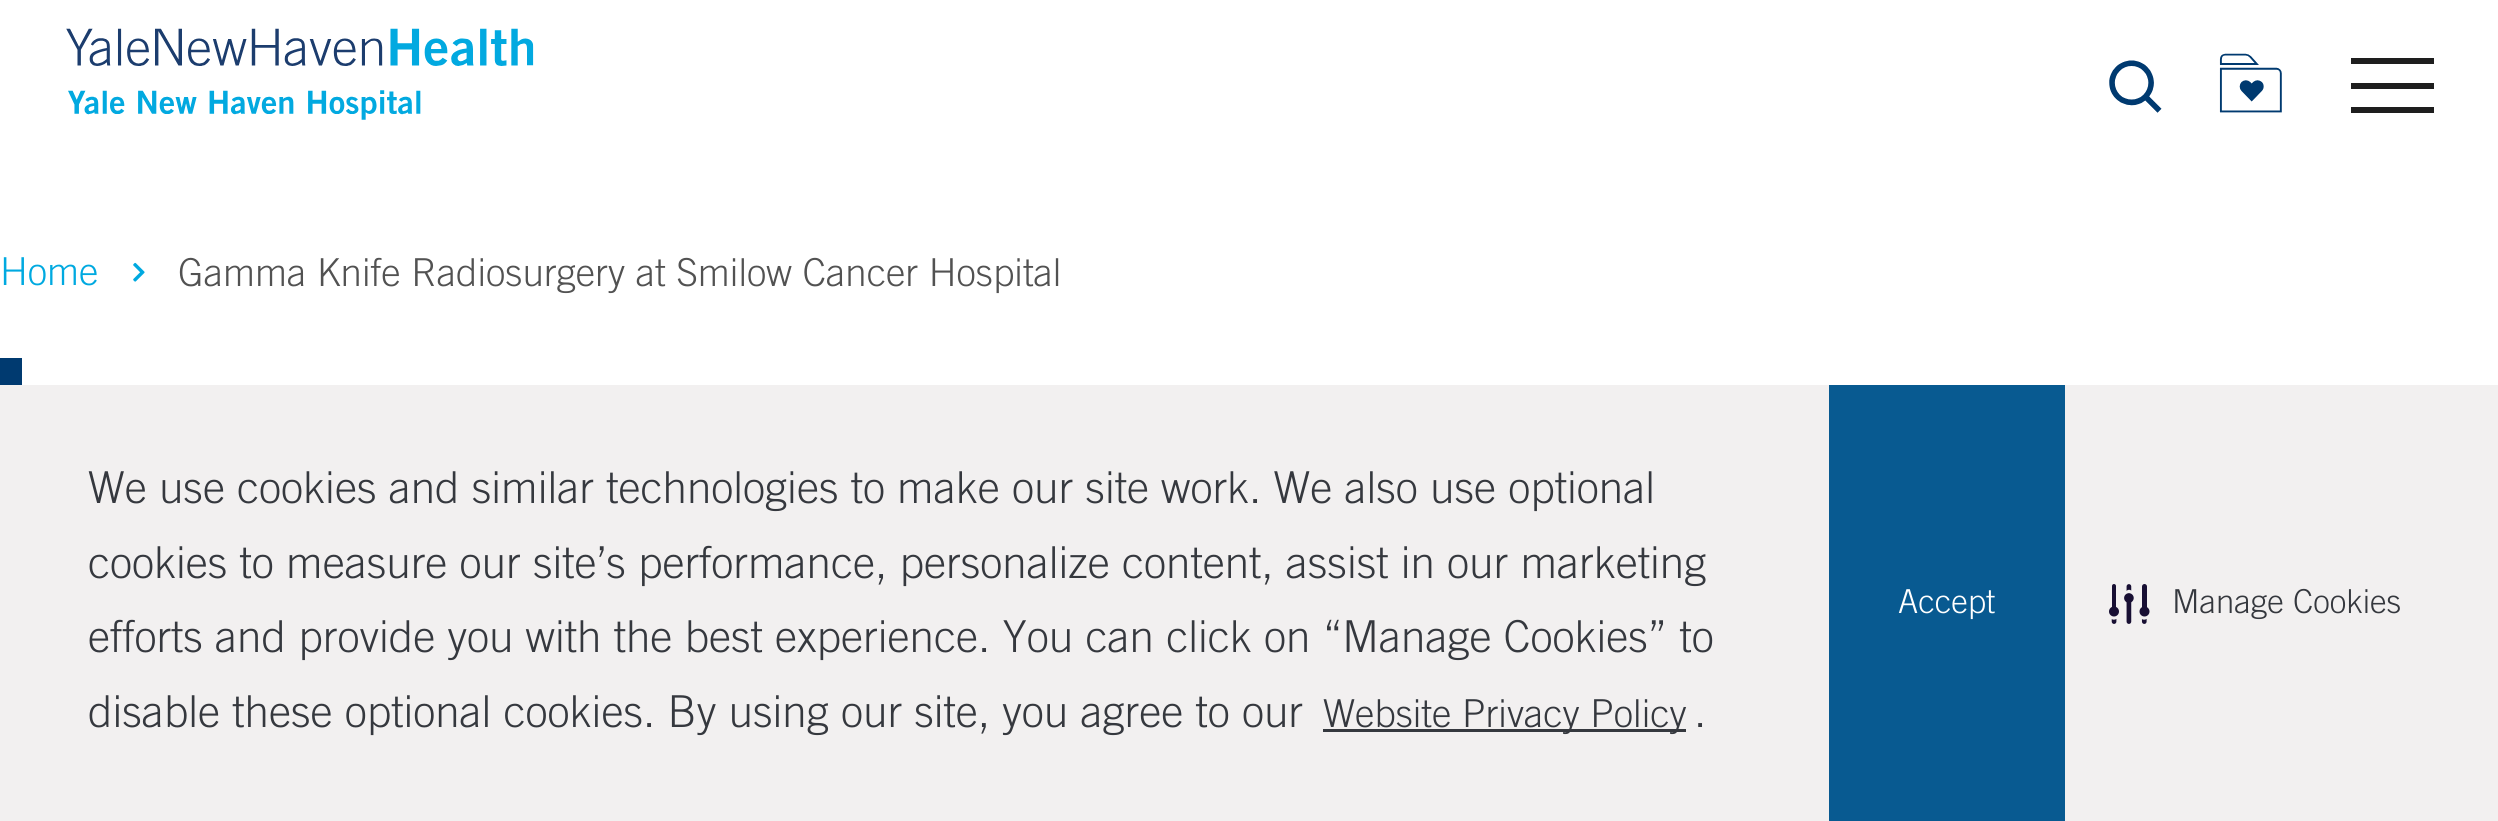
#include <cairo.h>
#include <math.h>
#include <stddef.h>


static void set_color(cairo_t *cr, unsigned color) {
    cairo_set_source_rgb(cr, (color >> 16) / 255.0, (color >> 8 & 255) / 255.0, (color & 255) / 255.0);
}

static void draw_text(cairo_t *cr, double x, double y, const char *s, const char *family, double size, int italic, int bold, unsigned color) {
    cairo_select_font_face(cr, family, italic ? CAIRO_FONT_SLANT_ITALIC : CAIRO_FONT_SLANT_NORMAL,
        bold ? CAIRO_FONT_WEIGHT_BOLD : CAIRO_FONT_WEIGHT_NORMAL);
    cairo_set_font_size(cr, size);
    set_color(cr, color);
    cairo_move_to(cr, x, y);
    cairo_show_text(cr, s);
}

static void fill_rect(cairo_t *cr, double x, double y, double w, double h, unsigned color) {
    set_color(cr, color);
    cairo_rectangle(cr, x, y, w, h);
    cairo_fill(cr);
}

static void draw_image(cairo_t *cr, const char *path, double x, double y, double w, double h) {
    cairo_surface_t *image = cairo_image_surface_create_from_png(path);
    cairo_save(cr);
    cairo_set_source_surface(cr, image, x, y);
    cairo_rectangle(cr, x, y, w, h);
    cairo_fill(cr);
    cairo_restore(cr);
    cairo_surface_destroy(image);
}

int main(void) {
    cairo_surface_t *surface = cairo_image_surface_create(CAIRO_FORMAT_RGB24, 2498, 821);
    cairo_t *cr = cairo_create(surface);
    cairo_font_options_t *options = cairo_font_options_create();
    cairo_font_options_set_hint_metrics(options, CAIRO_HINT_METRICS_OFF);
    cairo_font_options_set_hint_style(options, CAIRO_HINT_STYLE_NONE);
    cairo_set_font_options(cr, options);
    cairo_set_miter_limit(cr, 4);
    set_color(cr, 0xFFFFFF);
    cairo_paint(cr);
    draw_image(cr, "assets/img1.png", 66, 28, 468, 92);
    draw_image(cr, "assets/img2.png", 2109, 60, 53, 53);
    draw_image(cr, "assets/img3.png", 2219, 53, 63, 60);
    fill_rect(cr, 2351, 58, 83, 6, 0x1E1E1E);
    fill_rect(cr, 2351, 83, 83, 6, 0x1E1E1E);
    fill_rect(cr, 2351, 107, 83, 6, 0x1E1E1E);
    draw_text(cr, 0, 285, "Home", "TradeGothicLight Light", 38.5, 0, 0, 0x00A9E0);
    draw_image(cr, "assets/img4.png", 133, 262, 12, 20);
    draw_text(cr, 178, 286, "Gamma Knife Radiosurgery at Smilow Cancer Hospital", "TradeGothicLight Light", 38.5, 0, 0, 0x525252);
    fill_rect(cr, 0, 358, 22, 27, 0x003A70);
    fill_rect(cr, 0, 385, 2498, 436, 0xF2F0F0);
    draw_text(cr, 88, 503, "We use cookies and similar technologies to make our site work. We also use optional", "TradeGothicLight Light", 44, 0, 0, 0x35383E);
    draw_text(cr, 88, 578, "cookies to measure our site’s performance, personalize content, assist in our marketing", "TradeGothicLight Light", 44, 0, 0, 0x35383E);
    draw_text(cr, 88, 652, "efforts and provide you with the best experience. You can click on “Manage Cookies” to", "TradeGothicLight Light", 44, 0, 0, 0x35383E);
    draw_text(cr, 88, 727, "disable these optional cookies. By using our site, you agree to our", "TradeGothicLight Light", 44, 0, 0, 0x35383E);
    fill_rect(cr, 1323, 729, 363, 3, 0x35383E);
    draw_text(cr, 1323, 727, "Website Privacy Policy", "TradeGothicLight Light", 38.5, 0, 0, 0x35383E);
    draw_text(cr, 1694, 727, ".", "TradeGothicLight Light", 44, 0, 0, 0x35383E);
    fill_rect(cr, 1829, 385, 236, 436, 0x085A91);
    draw_text(cr, 1898, 613, "Accept", "TradeGothicLight Light", 33, 0, 0, 0xFFFFFF);
    draw_image(cr, "assets/img5.png", 2109, 584, 41, 40);
    draw_text(cr, 2172, 613, "Manage Cookies", "TradeGothicLight Light", 33, 0, 0, 0x35383E);
    cairo_surface_write_to_png(surface, "output.png");
    cairo_font_options_destroy(options);
    cairo_destroy(cr);
    cairo_surface_destroy(surface);
    return 0;
}
